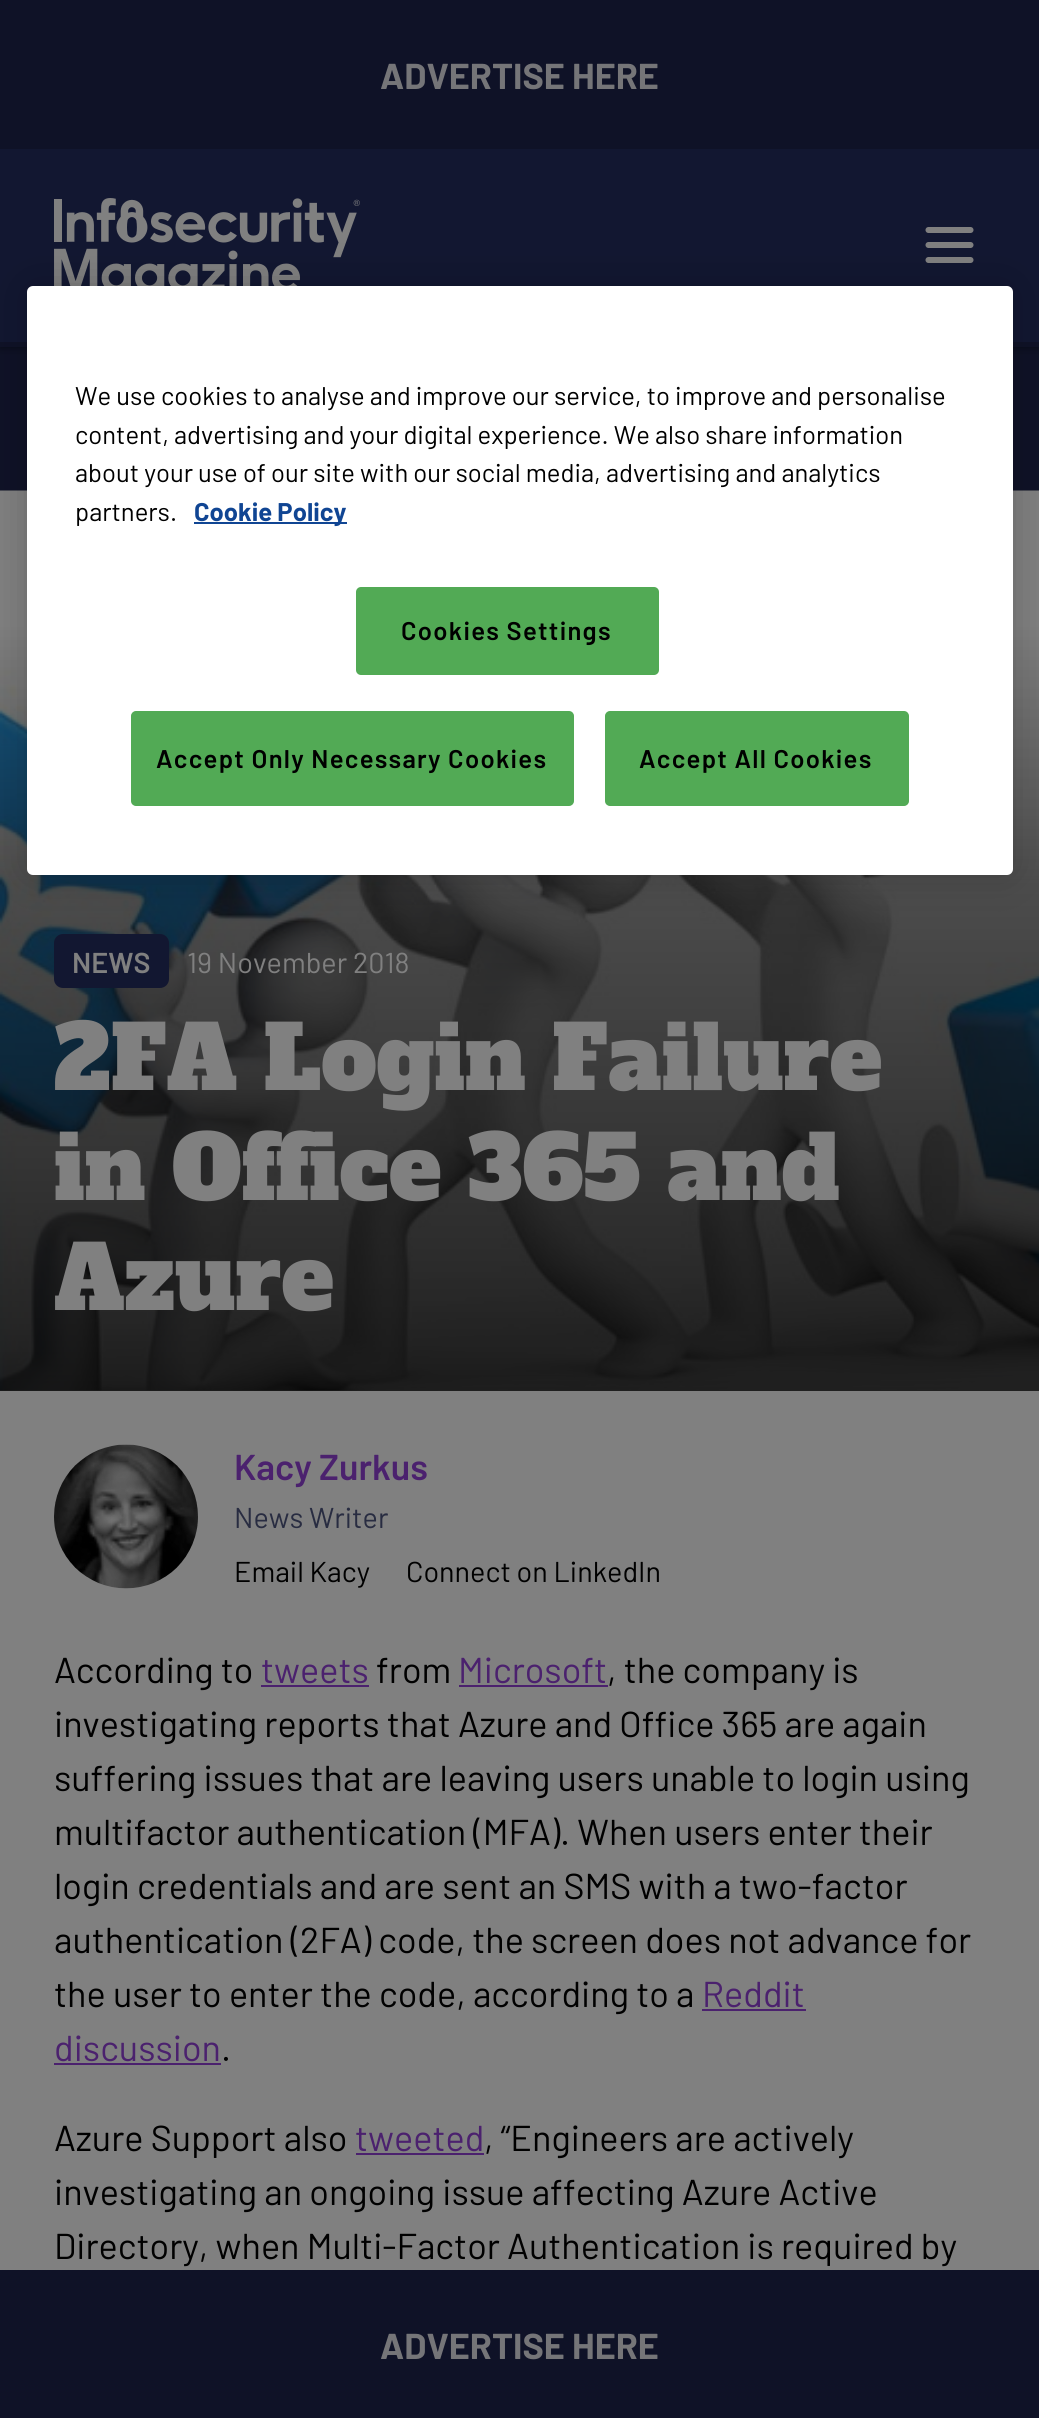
#include <cairo.h>
#include <math.h>
#include <stddef.h>


static void set_color(cairo_t *cr, unsigned color) {
    cairo_set_source_rgb(cr, (color >> 16) / 255.0, (color >> 8 & 255) / 255.0, (color & 255) / 255.0);
}

static void draw_text(cairo_t *cr, double x, double y, const char *s, const char *family, double size, int italic, int bold, unsigned color) {
    cairo_select_font_face(cr, family, italic ? CAIRO_FONT_SLANT_ITALIC : CAIRO_FONT_SLANT_NORMAL,
        bold ? CAIRO_FONT_WEIGHT_BOLD : CAIRO_FONT_WEIGHT_NORMAL);
    cairo_set_font_size(cr, size);
    set_color(cr, color);
    cairo_move_to(cr, x, y);
    cairo_show_text(cr, s);
}

static void draw_spaced(cairo_t *cr, double x, double y, const char *s, double letter, double word) {
    cairo_move_to(cr, x, y);
    while (*s) {
        char ch[5] = {0};
        int n = 0;
        do ch[n++] = *s++; while ((*s & 0xC0) == 0x80);
        cairo_show_text(cr, ch);
        cairo_rel_move_to(cr, letter + word * (*ch == ' '), 0);
    }
}

static void fill_rect(cairo_t *cr, double x, double y, double w, double h, unsigned color) {
    set_color(cr, color);
    cairo_rectangle(cr, x, y, w, h);
    cairo_fill(cr);
}

static void rounded_rect(cairo_t *cr, double x, double y, double w, double h, double r) {
    cairo_new_sub_path(cr);
    cairo_arc(cr, x + w - r, y + h - r, r, 0, M_PI / 2);
    cairo_arc(cr, x + r, y + h - r, r, M_PI / 2, M_PI);
    cairo_arc(cr, x + r, y + r, r, M_PI, 1.5 * M_PI);
    cairo_arc(cr, x + w - r, y + r, r, 1.5 * M_PI, 2 * M_PI);
    cairo_close_path(cr);
}

static void draw_shadow(cairo_t *cr, double x, double y, double w, double h, double r, double blur, double alpha) {
    cairo_push_group_with_content(cr, CAIRO_CONTENT_ALPHA);
    cairo_set_operator(cr, CAIRO_OPERATOR_SOURCE);
    for (int i = 15; i >= -15 && fmin(w, h) + blur * i / 3 > 0; i -= 2) {
        double e = blur * i / 6;
        cairo_set_source_rgba(cr, 0, 0, 0, alpha * erfc((i - 1) / 8.5) / 2);
        rounded_rect(cr, x - e, y - e, w + 2 * e, h + 2 * e, fmax(0, fmin(r + e + blur * .6, fmin(w, h) / 2 + e)));
        cairo_fill(cr);
    }
    cairo_pattern_t *soft = cairo_pop_group(cr);
    cairo_mask(cr, soft);
    cairo_pattern_destroy(soft);
}

static void draw_image(cairo_t *cr, const char *path, double x, double y, double w, double h) {
    cairo_surface_t *image = cairo_image_surface_create_from_png(path);
    cairo_save(cr);
    cairo_set_source_surface(cr, image, x, y);
    cairo_rectangle(cr, x, y, w, h);
    cairo_fill(cr);
    cairo_restore(cr);
    cairo_surface_destroy(image);
}

int main(void) {
    cairo_surface_t *surface = cairo_image_surface_create(CAIRO_FORMAT_RGB24, 1039, 2418);
    cairo_t *cr = cairo_create(surface);
    cairo_font_options_t *options = cairo_font_options_create();
    cairo_font_options_set_hint_metrics(options, CAIRO_HINT_METRICS_OFF);
    cairo_font_options_set_hint_style(options, CAIRO_HINT_STYLE_NONE);
    cairo_set_font_options(cr, options);
    cairo_set_miter_limit(cr, 4);
    cairo_pattern_t *gradient;
    set_color(cr, 0x808080);
    cairo_paint(cr);
    fill_rect(cr, 0, 347, 1039, 144, 0x0F1227);
    set_color(cr, 0x000000);
    draw_shadow(cr, 0, 149, 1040, 198, 0, 4.5, 0.5);
    fill_rect(cr, 0, 0, 1039, 149, 0x0F1227);
    draw_text(cr, 380, 89, "ADVERTISE HERE", "Barlow", 36, 0, 1, 0x757578);
    fill_rect(cr, 0, 149, 1039, 193, 0x121731);
    fill_rect(cr, 0, 342, 1039, 5, 0x0F1227);
    draw_image(cr, "assets/img1.png", 54, 198, 306, 88);
    cairo_new_path(cr);
    cairo_move_to(cr, 928.5, 260);
    cairo_line_to(cr, 970.5, 260);
    cairo_move_to(cr, 928.5, 245);
    cairo_line_to(cr, 970.5, 245);
    cairo_move_to(cr, 928.5, 230);
    cairo_line_to(cr, 970.5, 230);
    set_color(cr, 0x808080);
    cairo_set_line_width(cr, 6);
    cairo_set_line_cap(cr, CAIRO_LINE_CAP_ROUND);
    cairo_set_line_join(cr, CAIRO_LINE_JOIN_ROUND);
    cairo_stroke(cr);
    draw_image(cr, "assets/img2.png", 0, 490, 1039, 901);
    gradient = cairo_pattern_create_linear(520, 1391, 520, 880);
    cairo_pattern_add_color_stop_rgba(gradient, 0, 0, 0, 0, 0.75);
    cairo_pattern_add_color_stop_rgba(gradient, 1, 0, 0, 0, 0.4);
    cairo_set_source(cr, gradient);
    cairo_pattern_destroy(gradient);
    cairo_rectangle(cr, 0, 880, 1039, 511);
    cairo_fill(cr);
    set_color(cr, 0x121731);
    rounded_rect(cr, 54, 934, 115, 54, 9);
    cairo_fill(cr);
    set_color(cr, 0x000000);
    draw_shadow(cr, 27, 286, 986, 589, 6, 20, 0.2);
    set_color(cr, 0xFFFFFF);
    rounded_rect(cr, 27, 286, 986, 589, 6);
    cairo_fill(cr);
    draw_text(cr, 75, 405, "We use cookies to analyse and improve our service, to improve and personalise", "Barlow", 25.6, 0, 0, 0x000000);
    draw_text(cr, 75, 444, "content, advertising and your digital experience. We also share information", "Barlow", 25.6, 0, 0, 0x000000);
    draw_text(cr, 75, 482, "about your use of our site with our social media, advertising and analytics", "Barlow", 25.6, 0, 0, 0x000000);
    draw_text(cr, 75, 521, "partners.", "Barlow", 25.6, 0, 0, 0x000000);
    fill_rect(cr, 194, 522, 153, 2, 0x104593);
    draw_text(cr, 194, 521, "Cookie Policy", "Barlow", 25.6, 0, 1, 0x104593);
    set_color(cr, 0x52AA55);
    rounded_rect(cr, 356, 587, 303, 88, 5);
    cairo_fill(cr);
    cairo_select_font_face(cr, "Barlow SemiBold", CAIRO_FONT_SLANT_NORMAL, CAIRO_FONT_WEIGHT_NORMAL);
    set_color(cr, 0x000000);
    draw_spaced(cr, 401, 640, "Cookies Settings", 1.25, 0);
    set_color(cr, 0x52AA55);
    rounded_rect(cr, 132, 712, 441, 93, 4);
    cairo_fill_preserve(cr);
    cairo_set_line_width(cr, 2);
    cairo_set_line_cap(cr, CAIRO_LINE_CAP_BUTT);
    cairo_set_line_join(cr, CAIRO_LINE_JOIN_MITER);
    cairo_stroke(cr);
    set_color(cr, 0x000000);
    draw_spaced(cr, 156, 768, "Accept Only Necessary Cookies", 1.25, 0);
    set_color(cr, 0x52AA55);
    rounded_rect(cr, 606, 712, 302, 93, 4);
    cairo_fill_preserve(cr);
    cairo_stroke(cr);
    set_color(cr, 0x000000);
    draw_spaced(cr, 639, 768, "Accept All Cookies", 1.25, 0);
    draw_text(cr, 72, 973, "NEWS", "Barlow SemiBold", 28.75, 0, 0, 0x808080);
    draw_text(cr, 187, 973, "19 November 2018", "Barlow", 28.75, 0, 0, 0x808080);
    draw_text(cr, 54, 1090, "2FA Login Failure", "Alfa Slab One", 87.9, 0, 0, 0x808080);
    draw_text(cr, 54, 1200, "in Office 365 and", "Alfa Slab One", 87.9, 0, 0, 0x808080);
    draw_text(cr, 54, 1310, "Azure", "Alfa Slab One", 87.9, 0, 0, 0x808080);
    draw_image(cr, "assets/img3.png", 54, 1444, 144, 145);
    draw_text(cr, 234, 1480, "Kacy Zurkus", "Barlow SemiBold", 36, 0, 0, 0x4B216E);
    draw_text(cr, 234, 1528, "News Writer", "Barlow", 28.75, 0, 0, 0x282C41);
    draw_text(cr, 234, 1582, "Email Kacy", "Barlow", 28.75, 0, 0, 0x000000);
    draw_text(cr, 406, 1582, "Connect on LinkedIn", "Barlow", 28.75, 0, 0, 0x000000);
    draw_text(cr, 54, 1683, "According to", "Barlow", 36, 0, 0, 0x000000);
    draw_text(cr, 261, 1683, "tweets", "Barlow", 36, 0, 0, 0x4B216E);
    fill_rect(cr, 261, 1685, 108, 2, 0x4B216E);
    draw_text(cr, 376, 1683, "from", "Barlow", 36, 0, 0, 0x000000);
    draw_text(cr, 458, 1683, "Microsoft", "Barlow", 36, 0, 0, 0x4B216E);
    fill_rect(cr, 459, 1685, 149, 2, 0x4B216E);
    draw_text(cr, 607, 1683, ", the company is", "Barlow", 36, 0, 0, 0x000000);
    draw_text(cr, 54, 1737, "investigating reports that Azure and Office 365 are again", "Barlow", 36, 0, 0, 0x000000);
    draw_text(cr, 54, 1791, "suffering issues that are leaving users unable to login using", "Barlow", 36, 0, 0, 0x000000);
    draw_text(cr, 54, 1845, "multifactor authentication (MFA). When users enter their", "Barlow", 36, 0, 0, 0x000000);
    draw_text(cr, 54, 1899, "login credentials and are sent an SMS with a two-factor", "Barlow", 36, 0, 0, 0x000000);
    draw_text(cr, 54, 1953, "authentication (2FA) code, the screen does not advance for", "Barlow", 36, 0, 0, 0x000000);
    draw_text(cr, 54, 2007, "the user to enter the code, according to a", "Barlow", 36, 0, 0, 0x000000);
    draw_text(cr, 702, 2007, "Reddit", "Barlow", 36, 0, 0, 0x4B216E);
    fill_rect(cr, 702, 2009, 104, 2, 0x4B216E);
    draw_text(cr, 54, 2061, "discussion", "Barlow", 36, 0, 0, 0x4B216E);
    fill_rect(cr, 54, 2063, 167, 2, 0x4B216E);
    draw_text(cr, 221, 2061, ".", "Barlow", 36, 0, 0, 0x000000);
    draw_text(cr, 54, 2151, "Azure Support also", "Barlow", 36, 0, 0, 0x000000);
    draw_text(cr, 355, 2151, "tweeted", "Barlow", 36, 0, 0, 0x4B216E);
    fill_rect(cr, 356, 2153, 128, 2, 0x4B216E);
    draw_text(cr, 484, 2151, ", “Engineers are actively", "Barlow", 36, 0, 0, 0x000000);
    draw_text(cr, 54, 2205, "investigating an ongoing issue affecting Azure Active", "Barlow", 36, 0, 0, 0x000000);
    draw_text(cr, 54, 2259, "Directory, when Multi-Factor Authentication is required by", "Barlow", 36, 0, 0, 0x000000);
    fill_rect(cr, 0, 2270, 1039, 148, 0x0F1227);
    draw_text(cr, 380, 2359, "ADVERTISE HERE", "Barlow", 36, 0, 1, 0x757578);
    cairo_surface_write_to_png(surface, "output.png");
    cairo_font_options_destroy(options);
    cairo_destroy(cr);
    cairo_surface_destroy(surface);
    return 0;
}
